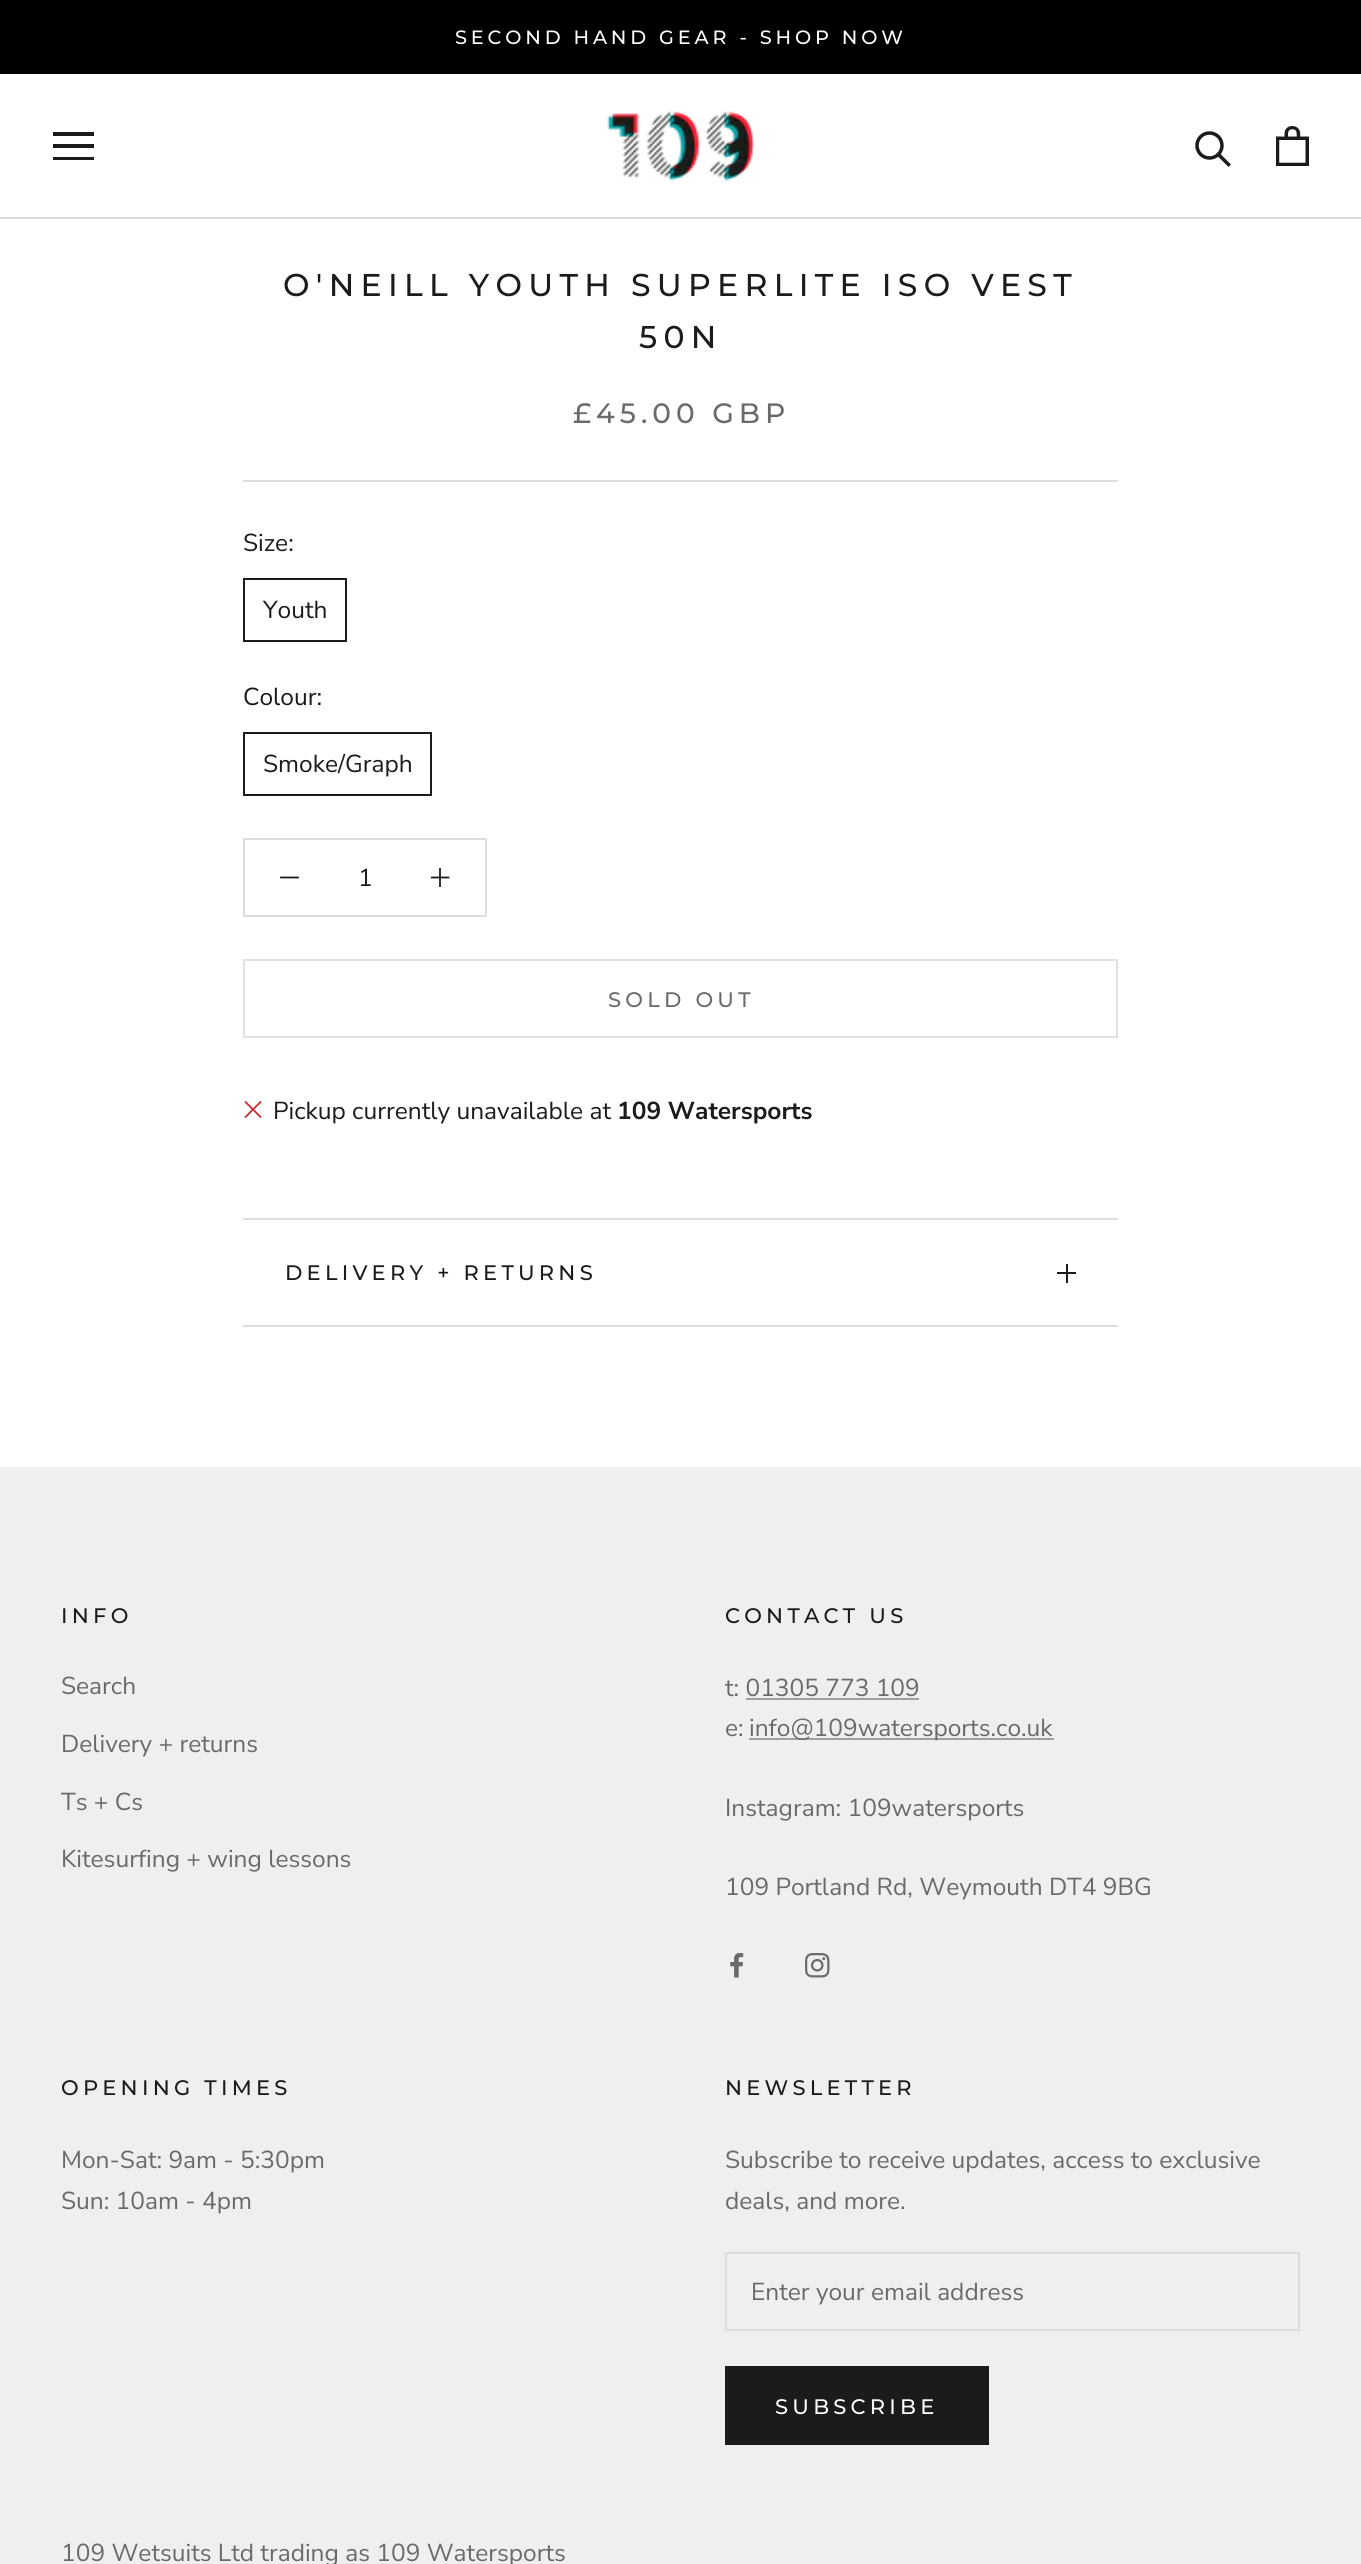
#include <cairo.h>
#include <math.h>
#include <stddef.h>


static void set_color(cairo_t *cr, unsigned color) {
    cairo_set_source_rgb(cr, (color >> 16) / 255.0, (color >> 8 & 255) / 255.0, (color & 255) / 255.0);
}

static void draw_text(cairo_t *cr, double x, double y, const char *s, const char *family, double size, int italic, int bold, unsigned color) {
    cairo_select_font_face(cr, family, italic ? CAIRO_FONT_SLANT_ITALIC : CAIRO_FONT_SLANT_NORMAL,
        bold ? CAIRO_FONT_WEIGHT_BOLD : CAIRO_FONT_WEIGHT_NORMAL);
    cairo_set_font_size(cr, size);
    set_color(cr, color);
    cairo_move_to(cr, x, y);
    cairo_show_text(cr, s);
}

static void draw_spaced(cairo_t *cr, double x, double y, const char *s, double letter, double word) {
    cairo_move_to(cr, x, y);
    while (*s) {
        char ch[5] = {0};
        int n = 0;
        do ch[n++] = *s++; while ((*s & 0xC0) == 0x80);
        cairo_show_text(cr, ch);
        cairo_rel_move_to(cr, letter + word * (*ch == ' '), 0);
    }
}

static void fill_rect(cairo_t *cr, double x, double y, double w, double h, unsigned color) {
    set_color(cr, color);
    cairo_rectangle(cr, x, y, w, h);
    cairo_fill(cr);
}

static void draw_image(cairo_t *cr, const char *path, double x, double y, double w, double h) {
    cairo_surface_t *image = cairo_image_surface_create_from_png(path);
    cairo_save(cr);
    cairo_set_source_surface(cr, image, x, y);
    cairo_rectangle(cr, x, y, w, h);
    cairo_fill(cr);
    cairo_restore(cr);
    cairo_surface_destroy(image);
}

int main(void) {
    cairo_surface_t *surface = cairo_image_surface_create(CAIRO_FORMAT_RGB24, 1361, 2564);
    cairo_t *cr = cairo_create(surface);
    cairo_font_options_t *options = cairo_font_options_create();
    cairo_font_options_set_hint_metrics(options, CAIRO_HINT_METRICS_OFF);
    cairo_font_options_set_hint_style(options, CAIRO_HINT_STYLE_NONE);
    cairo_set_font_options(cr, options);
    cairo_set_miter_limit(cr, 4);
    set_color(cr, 0xFFFFFF);
    cairo_paint(cr);
    fill_rect(cr, 0, 0, 1361, 74, 0x000000);
    cairo_select_font_face(cr, "Montserrat Medium", CAIRO_FONT_SLANT_NORMAL, CAIRO_FONT_WEIGHT_NORMAL);
    cairo_set_font_size(cr, 19.25);
    set_color(cr, 0xFFFFFF);
    draw_spaced(cr, 455, 44, "SECOND HAND GEAR - SHOP NOW", 3.85, 0);
    fill_rect(cr, 0, 217, 1361, 2, 0xDBDBDB);
    cairo_save(cr);
    cairo_rectangle(cr, 53, 131, 42, 30);
    cairo_clip(cr);
    set_color(cr, 0x1C1B1B);
    cairo_new_path(cr);
    cairo_move_to(cr, 52, 160);
    cairo_line_to(cr, 52, 157);
    cairo_line_to(cr, 94, 157);
    cairo_line_to(cr, 94, 160);
    cairo_close_path(cr);
    cairo_move_to(cr, 52, 144);
    cairo_line_to(cr, 94, 144);
    cairo_line_to(cr, 94, 148);
    cairo_line_to(cr, 52, 148);
    cairo_close_path(cr);
    cairo_move_to(cr, 52, 132);
    cairo_line_to(cr, 94, 132);
    cairo_line_to(cr, 94, 136);
    cairo_line_to(cr, 52, 136);
    cairo_close_path(cr);
    cairo_fill(cr);
    cairo_restore(cr);
    draw_image(cr, "assets/img1.png", 607, 111, 148, 70);
    cairo_new_path(cr);
    cairo_move_to(cr, 1228.5, 164.5);
    cairo_line_to(cr, 1218.5, 154.5);
    set_color(cr, 0x1C1B1B);
    cairo_set_line_width(cr, 3.5);
    cairo_set_line_cap(cr, CAIRO_LINE_CAP_SQUARE);
    cairo_stroke(cr);
    cairo_arc(cr, 1209.5, 145.5, 12.5, 0, 2 * M_PI);
    cairo_set_line_cap(cr, CAIRO_LINE_CAP_BUTT);
    cairo_stroke(cr);
    draw_image(cr, "assets/img2.png", 1276, 126, 33, 40);
    fill_rect(cr, 243, 480, 875, 2, 0xDDDDDD);
    cairo_set_font_size(cr, 31.5);
    set_color(cr, 0x1C1B1B);
    draw_spaced(cr, 283, 296, "O'NEILL YOUTH SUPERLITE ISO VEST", 6.3, 0);
    draw_spaced(cr, 639, 348, "50N", 6.3, 0);
    cairo_set_font_size(cr, 28);
    set_color(cr, 0x6A6A6A);
    draw_spaced(cr, 573, 423, "£45.00 GBP", 5, 0);
    draw_text(cr, 243, 551, "Size:", "Nunito Sans", 24.5, 0, 0, 0x1C1B1B);
    cairo_rectangle(cr, 244, 579, 102, 62);
    cairo_set_line_width(cr, 2);
    cairo_stroke(cr);
    draw_text(cr, 263, 618, "Youth", "Nunito Sans", 24.5, 0, 0, 0x1C1B1B);
    draw_text(cr, 243, 705, "Colour:", "Nunito Sans", 24.5, 0, 0, 0x1C1B1B);
    cairo_rectangle(cr, 244, 733, 187, 62);
    cairo_stroke(cr);
    draw_text(cr, 263, 772, "Smoke/Graph", "Nunito Sans", 24.5, 0, 0, 0x1C1B1B);
    cairo_rectangle(cr, 244, 839, 242, 77);
    set_color(cr, 0xDDDDDD);
    cairo_stroke(cr);
    cairo_new_path(cr);
    cairo_move_to(cr, 281, 877.5);
    cairo_line_to(cr, 298, 877.5);
    set_color(cr, 0x1C1B1B);
    cairo_set_line_width(cr, 1.8);
    cairo_set_line_cap(cr, CAIRO_LINE_CAP_SQUARE);
    cairo_stroke(cr);
    draw_text(cr, 358, 886, "1", "Nunito Sans", 24.5, 0, 0, 0x1C1B1B);
    fill_rect(cr, 439, 868, 2, 19, 0x333232);
    cairo_save(cr);
    cairo_rectangle(cr, 431, 868, 19, 19);
    cairo_clip(cr);
    cairo_new_path(cr);
    cairo_move_to(cr, 431.5, 877.5);
    cairo_line_to(cr, 448.5, 877.5);
    set_color(cr, 0x1C1B1B);
    cairo_stroke(cr);
    cairo_restore(cr);
    cairo_rectangle(cr, 244, 960, 873, 77);
    set_color(cr, 0xE1E1E1);
    cairo_set_line_width(cr, 2);
    cairo_set_line_cap(cr, CAIRO_LINE_CAP_BUTT);
    cairo_stroke(cr);
    cairo_select_font_face(cr, "Montserrat Medium", CAIRO_FONT_SLANT_NORMAL, CAIRO_FONT_WEIGHT_NORMAL);
    cairo_set_font_size(cr, 21);
    set_color(cr, 0x6A6A6A);
    draw_spaced(cr, 608, 1007, "SOLD OUT", 4.25, 0);
    cairo_new_path(cr);
    cairo_move_to(cr, 261, 1117.5);
    cairo_line_to(cr, 245, 1101.5);
    cairo_move_to(cr, 261, 1101.5);
    cairo_line_to(cr, 245, 1117.5);
    set_color(cr, 0xCB2B2B);
    cairo_set_line_width(cr, 1.8);
    cairo_stroke(cr);
    draw_text(cr, 273, 1119, "Pickup currently unavailable at", "Nunito Sans", 24.5, 0, 0, 0x1C1B1B);
    draw_text(cr, 617, 1119, "109 Watersports", "Nunito Sans", 24.5, 0, 1, 0x1C1B1B);
    fill_rect(cr, 243, 1218, 875, 2, 0xDDDDDD);
    fill_rect(cr, 243, 1325, 875, 2, 0xDDDDDD);
    cairo_select_font_face(cr, "Montserrat Medium", CAIRO_FONT_SLANT_NORMAL, CAIRO_FONT_WEIGHT_NORMAL);
    cairo_set_font_size(cr, 21);
    set_color(cr, 0x1C1B1B);
    draw_spaced(cr, 285, 1280, "DELIVERY + RETURNS", 4.25, 0);
    fill_rect(cr, 1066, 1264, 2, 19, 0x1C1B1B);
    fill_rect(cr, 1057, 1272, 19, 2, 0x1C1B1B);
    fill_rect(cr, 0, 1467, 1361, 1097, 0xEFEFEF);
    set_color(cr, 0x1C1B1B);
    draw_spaced(cr, 61, 1623, "INFO", 4.25, 0);
    draw_text(cr, 61, 1694, "Search", "Nunito Sans", 24.5, 0, 0, 0x6A6A6A);
    draw_text(cr, 61, 1752, "Delivery + returns", "Nunito Sans", 24.5, 0, 0, 0x6A6A6A);
    draw_text(cr, 61, 1810, "Ts + Cs", "Nunito Sans", 24.5, 0, 0, 0x6A6A6A);
    draw_text(cr, 61, 1867, "Kitesurfing + wing lessons", "Nunito Sans", 24.5, 0, 0, 0x6A6A6A);
    cairo_select_font_face(cr, "Montserrat Medium", CAIRO_FONT_SLANT_NORMAL, CAIRO_FONT_WEIGHT_NORMAL);
    cairo_set_font_size(cr, 21);
    set_color(cr, 0x1C1B1B);
    draw_spaced(cr, 725, 1623, "CONTACT US", 4.25, 0);
    draw_text(cr, 725, 1696, "t: 01305 773 109", "Nunito Sans", 24.5, 0, 0, 0x6A6A6A);
    fill_rect(cr, 746, 1698, 173, 2, 0x9F9F9F);
    draw_text(cr, 725, 1736, "e:", "Nunito Sans", 24.5, 0, 0, 0x6A6A6A);
    fill_rect(cr, 749, 1738, 305, 2, 0x9F9F9F);
    draw_text(cr, 749, 1736, "info@109watersports.co.uk", "Nunito Sans", 24.5, 0, 0, 0x6A6A6A);
    draw_text(cr, 725, 1816, "Instagram: 109watersports", "Nunito Sans", 24.5, 0, 0, 0x6A6A6A);
    draw_text(cr, 725, 1895, "109 Portland Rd, Weymouth DT4 9BG", "Nunito Sans", 24.5, 0, 0, 0x6A6A6A);
    draw_image(cr, "assets/img3.png", 730, 1953, 14, 25);
    draw_image(cr, "assets/img4.png", 805, 1953, 25, 25);
    cairo_select_font_face(cr, "Montserrat Medium", CAIRO_FONT_SLANT_NORMAL, CAIRO_FONT_WEIGHT_NORMAL);
    cairo_set_font_size(cr, 21);
    set_color(cr, 0x1C1B1B);
    draw_spaced(cr, 61, 2095, "OPENING TIMES", 4.25, 0);
    draw_text(cr, 61, 2168, "Mon-Sat: 9am - 5:30pm", "Nunito Sans", 24.5, 0, 0, 0x6A6A6A);
    draw_text(cr, 61, 2209, "Sun: 10am - 4pm", "Nunito Sans", 24.5, 0, 0, 0x6A6A6A);
    cairo_select_font_face(cr, "Montserrat Medium", CAIRO_FONT_SLANT_NORMAL, CAIRO_FONT_WEIGHT_NORMAL);
    cairo_set_font_size(cr, 21);
    set_color(cr, 0x1C1B1B);
    draw_spaced(cr, 725, 2095, "NEWSLETTER", 4.25, 0);
    draw_text(cr, 725, 2168, "Subscribe to receive updates, access to exclusive", "Nunito Sans", 24.5, 0, 0, 0x6A6A6A);
    draw_text(cr, 725, 2209, "deals, and more.", "Nunito Sans", 24.5, 0, 0, 0x6A6A6A);
    cairo_rectangle(cr, 726, 2253, 573, 77);
    set_color(cr, 0xDDDDDD);
    cairo_set_line_width(cr, 2);
    cairo_stroke(cr);
    draw_text(cr, 751, 2300, "Enter your email address", "Nunito Sans", 24.5, 0, 0, 0x6A6A6A);
    cairo_rectangle(cr, 726, 2367, 262, 77);
    set_color(cr, 0x1C1B1B);
    cairo_stroke(cr);
    fill_rect(cr, 727, 2368, 260, 75, 0x1C1B1B);
    cairo_select_font_face(cr, "Montserrat Medium", CAIRO_FONT_SLANT_NORMAL, CAIRO_FONT_WEIGHT_NORMAL);
    cairo_set_font_size(cr, 21);
    set_color(cr, 0xFFFFFF);
    draw_spaced(cr, 775, 2414, "SUBSCRIBE", 4.25, 0);
    draw_text(cr, 61, 2561, "109 Wetsuits Ltd trading as 109 Watersports", "Nunito Sans", 24.5, 0, 0, 0x6A6A6A);
    cairo_surface_write_to_png(surface, "output.png");
    cairo_font_options_destroy(options);
    cairo_destroy(cr);
    cairo_surface_destroy(surface);
    return 0;
}
